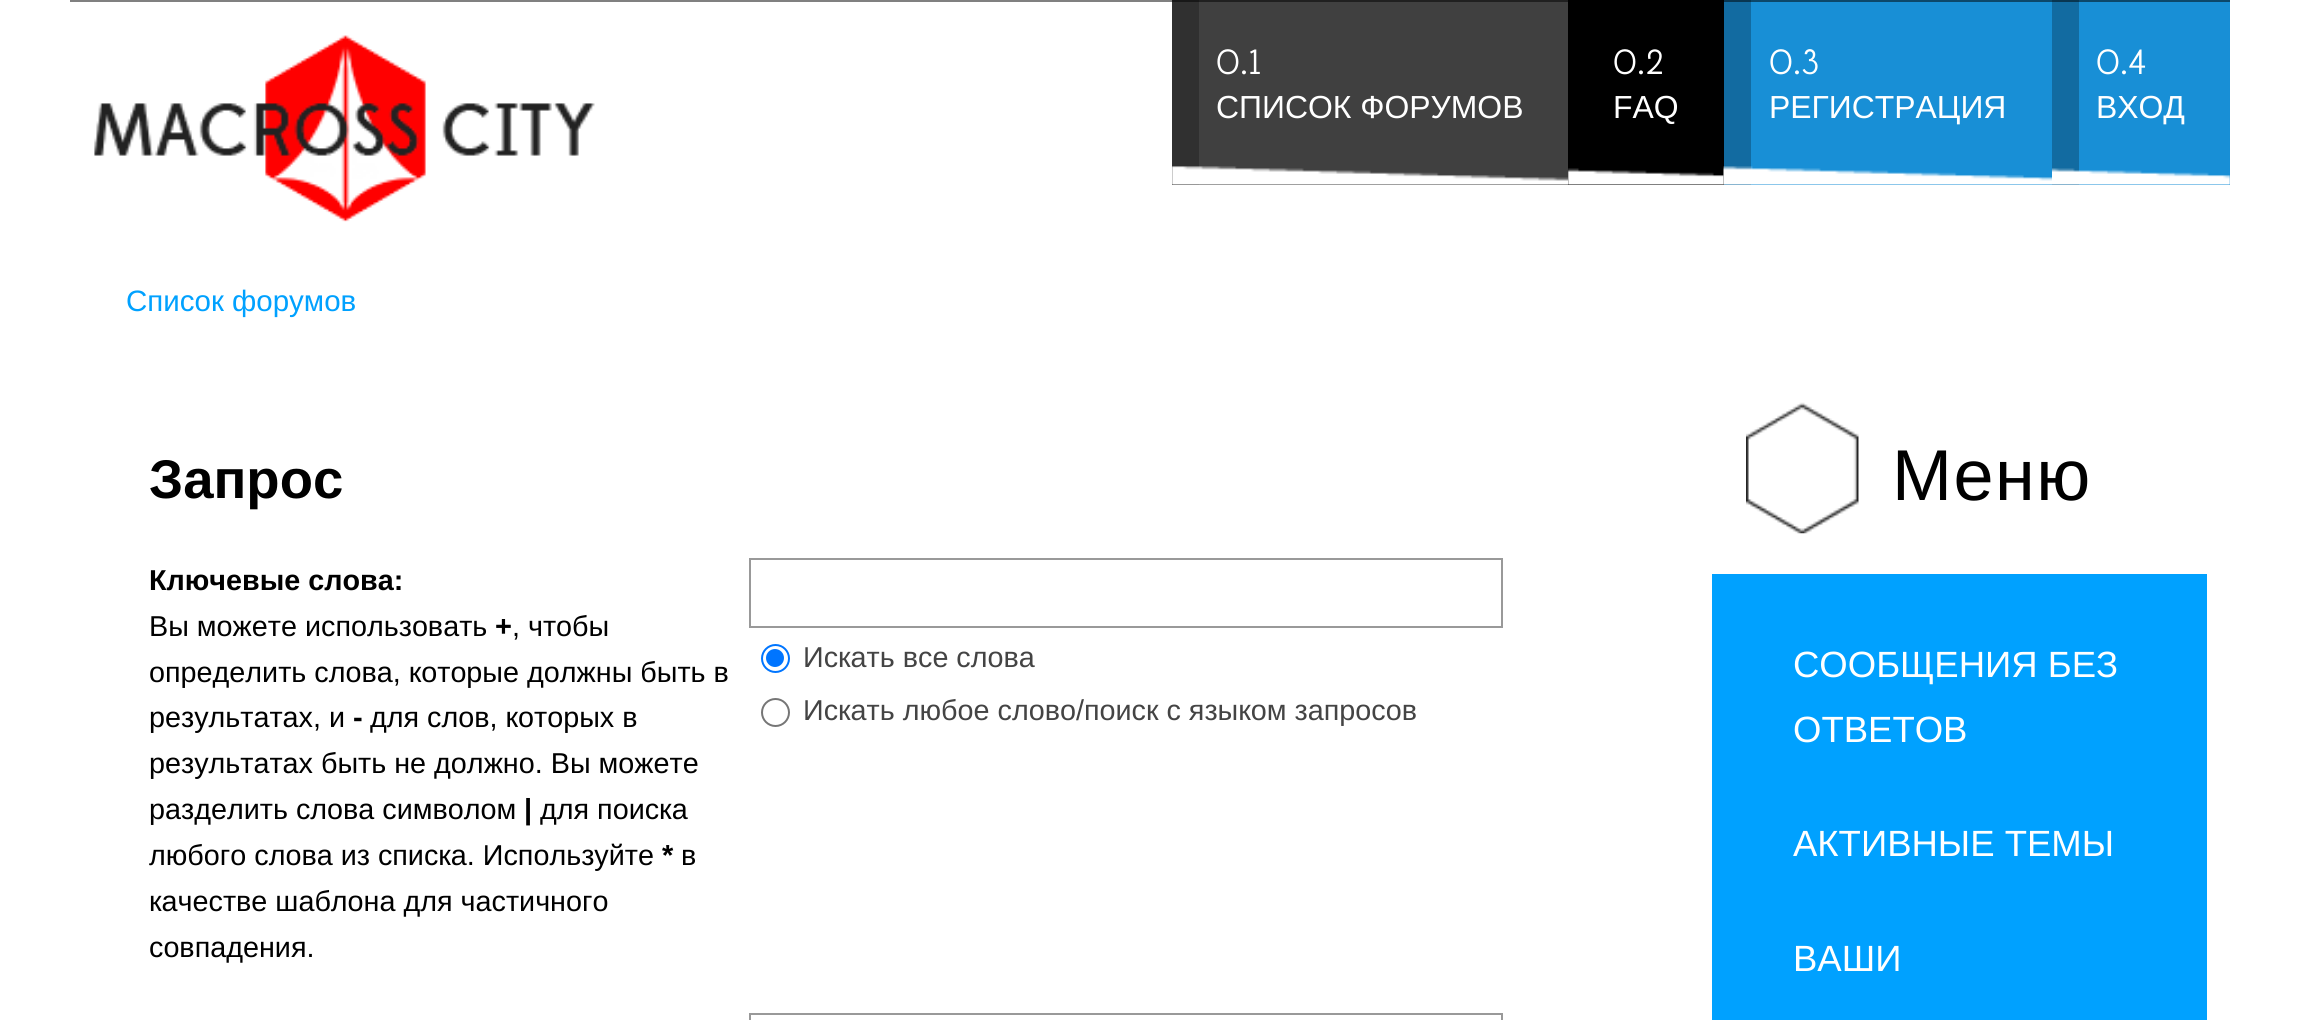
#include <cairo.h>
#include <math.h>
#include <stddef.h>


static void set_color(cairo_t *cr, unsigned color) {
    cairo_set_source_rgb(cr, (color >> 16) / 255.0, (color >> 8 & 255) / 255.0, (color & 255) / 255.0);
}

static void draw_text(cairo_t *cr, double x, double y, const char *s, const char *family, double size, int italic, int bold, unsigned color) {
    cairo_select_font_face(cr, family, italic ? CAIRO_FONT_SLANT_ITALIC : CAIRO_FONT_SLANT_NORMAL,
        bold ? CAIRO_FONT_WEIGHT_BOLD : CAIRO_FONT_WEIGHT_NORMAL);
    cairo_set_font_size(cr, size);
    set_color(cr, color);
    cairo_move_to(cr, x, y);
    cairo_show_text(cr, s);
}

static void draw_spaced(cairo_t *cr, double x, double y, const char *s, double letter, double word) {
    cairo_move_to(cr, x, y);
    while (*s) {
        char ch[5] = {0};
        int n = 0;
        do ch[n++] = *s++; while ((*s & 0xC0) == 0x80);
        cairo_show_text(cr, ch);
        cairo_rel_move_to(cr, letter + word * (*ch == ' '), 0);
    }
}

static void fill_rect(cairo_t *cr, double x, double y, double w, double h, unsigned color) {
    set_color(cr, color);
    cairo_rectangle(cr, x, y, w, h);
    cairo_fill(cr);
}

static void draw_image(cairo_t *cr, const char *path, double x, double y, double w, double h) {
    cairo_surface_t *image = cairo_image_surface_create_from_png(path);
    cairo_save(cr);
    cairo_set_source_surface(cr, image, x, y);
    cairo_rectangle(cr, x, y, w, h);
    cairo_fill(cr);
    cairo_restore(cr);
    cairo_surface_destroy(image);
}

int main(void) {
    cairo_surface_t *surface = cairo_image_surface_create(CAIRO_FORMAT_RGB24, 2299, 1020);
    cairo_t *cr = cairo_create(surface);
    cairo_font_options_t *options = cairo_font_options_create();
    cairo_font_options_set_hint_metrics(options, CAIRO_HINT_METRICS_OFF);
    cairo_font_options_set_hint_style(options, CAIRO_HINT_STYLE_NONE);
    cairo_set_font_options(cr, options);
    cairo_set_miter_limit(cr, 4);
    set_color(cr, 0xFFFFFF);
    cairo_paint(cr);
    fill_rect(cr, 70, 0, 1102, 2, 0x808080);
    draw_image(cr, "assets/img1.png", 94, 35, 501, 187);
    fill_rect(cr, 1199, 2, 369, 183, 0x404040);
    fill_rect(cr, 1199, 0, 369, 2, 0x202020);
    fill_rect(cr, 1172, 2, 27, 183, 0x303030);
    fill_rect(cr, 1172, 0, 27, 2, 0x181818);
    draw_text(cr, 1216, 74, "0.1", "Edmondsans", 35, 0, 0, 0xFFFFFF);
    draw_text(cr, 1216, 118, "СПИСОК ФОРУМОВ", "Liberation Sans", 31.9, 0, 0, 0xFFFFFF);
    draw_image(cr, "assets/img2.png", 1172, 166, 396, 19);
    fill_rect(cr, 1568, 0, 156, 185, 0x000000);
    draw_text(cr, 1613, 74, "0.2", "Edmondsans", 35, 0, 0, 0xFFFFFF);
    draw_text(cr, 1613, 118, "FAQ", "Liberation Sans", 31.9, 0, 0, 0xFFFFFF);
    draw_image(cr, "assets/img3.png", 1568, 168, 156, 17);
    fill_rect(cr, 1751, 2, 301, 183, 0x188FD6);
    fill_rect(cr, 1751, 0, 301, 2, 0x0C486B);
    fill_rect(cr, 1724, 2, 27, 183, 0x126BA1);
    fill_rect(cr, 1724, 0, 27, 2, 0x093651);
    draw_text(cr, 1769, 74, "0.3", "Edmondsans", 35, 0, 0, 0xFFFFFF);
    draw_text(cr, 1769, 118, "РЕГИСТРАЦИЯ", "Liberation Sans", 31.9, 0, 0, 0xFFFFFF);
    draw_image(cr, "assets/img4.png", 1723, 166, 329, 19);
    fill_rect(cr, 2079, 2, 151, 183, 0x188FD6);
    fill_rect(cr, 2079, 0, 151, 2, 0x0C486B);
    fill_rect(cr, 2052, 2, 27, 183, 0x126BA1);
    fill_rect(cr, 2052, 0, 27, 2, 0x093651);
    draw_text(cr, 2096, 74, "0.4", "Edmondsans", 35, 0, 0, 0xFFFFFF);
    draw_text(cr, 2096, 118, "ВХОД", "Liberation Sans", 31.9, 0, 0, 0xFFFFFF);
    draw_image(cr, "assets/img5.png", 2052, 168, 178, 17);
    draw_text(cr, 126, 311, "Список форумов", "Liberation Sans", 29.5, 0, 0, 0x00A1FF);
    draw_text(cr, 149, 498, "Запрос", "Liberation Sans", 54.5, 0, 1, 0x000000);
    draw_text(cr, 149, 590, "Ключевые слова:", "Liberation Sans", 28.75, 0, 1, 0x000000);
    draw_text(cr, 149, 636, "Вы можете использовать", "Liberation Sans", 28.75, 0, 0, 0x000000);
    draw_text(cr, 495, 636, "+", "Liberation Sans", 29, 0, 1, 0x000000);
    draw_text(cr, 512, 636, ", чтобы", "Liberation Sans", 28.75, 0, 0, 0x000000);
    draw_text(cr, 149, 682, "определить слова, которые должны быть в", "Liberation Sans", 28.75, 0, 0, 0x000000);
    draw_text(cr, 149, 727, "результатах, и", "Liberation Sans", 28.75, 0, 0, 0x000000);
    draw_text(cr, 353, 727, "-", "Liberation Sans", 29, 0, 1, 0x000000);
    draw_text(cr, 370, 727, "для слов, которых в", "Liberation Sans", 28.75, 0, 0, 0x000000);
    draw_text(cr, 149, 773, "результатах быть не должно. Вы можете", "Liberation Sans", 28.75, 0, 0, 0x000000);
    draw_text(cr, 149, 819, "разделить слова символом", "Liberation Sans", 28.75, 0, 0, 0x000000);
    draw_text(cr, 524, 819, "|", "Liberation Sans", 29, 0, 1, 0x000000);
    draw_text(cr, 540, 819, "для поиска", "Liberation Sans", 28.75, 0, 0, 0x000000);
    draw_text(cr, 149, 865, "любого слова из списка. Используйте", "Liberation Sans", 28.75, 0, 0, 0x000000);
    draw_text(cr, 662, 865, "*", "Liberation Sans", 29, 0, 1, 0x000000);
    draw_text(cr, 681, 865, "в", "Liberation Sans", 28.75, 0, 0, 0x000000);
    draw_text(cr, 149, 911, "качестве шаблона для частичного", "Liberation Sans", 28.75, 0, 0, 0x000000);
    draw_text(cr, 149, 957, "совпадения.", "Liberation Sans", 28.75, 0, 0, 0x000000);
    cairo_rectangle(cr, 750, 559, 752, 68);
    set_color(cr, 0x999999);
    cairo_stroke(cr);
    cairo_arc(cr, 775.5, 658.5, 13.5, 0, 2 * M_PI);
    set_color(cr, 0x0075FF);
    cairo_stroke(cr);
    cairo_arc(cr, 775, 658, 9, 0, 2 * M_PI);
    cairo_fill(cr);
    draw_text(cr, 803, 667, "Искать все слова", "Liberation Sans", 28.75, 0, 0, 0x444444);
    cairo_new_path(cr);
    cairo_arc(cr, 775.5, 712.5, 13.5, 0, 2 * M_PI);
    set_color(cr, 0x767676);
    cairo_stroke(cr);
    draw_text(cr, 803, 720, "Искать любое слово/поиск с языком запросов", "Liberation Sans", 28.75, 0, 0, 0x444444);
    cairo_rectangle(cr, 750, 1014, 752, 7);
    set_color(cr, 0x999999);
    cairo_stroke(cr);
    draw_image(cr, "assets/img6.png", 1746, 402, 113, 132);
    cairo_set_font_size(cr, 72);
    set_color(cr, 0x000000);
    draw_spaced(cr, 1892, 500, "Меню", 1.5, 0);
    fill_rect(cr, 1712, 574, 495, 446, 0x00A1FF);
    draw_text(cr, 1793, 677, "СООБЩЕНИЯ БЕЗ", "Liberation Sans", 36.5, 0, 0, 0xFFFFFF);
    draw_text(cr, 1793, 742, "ОТВЕТОВ", "Liberation Sans", 36.5, 0, 0, 0xFFFFFF);
    draw_text(cr, 1793, 856, "АКТИВНЫЕ ТЕМЫ", "Liberation Sans", 36.5, 0, 0, 0xFFFFFF);
    draw_text(cr, 1793, 971, "ВАШИ", "Liberation Sans", 36.5, 0, 0, 0xFFFFFF);
    cairo_surface_write_to_png(surface, "output.png");
    cairo_font_options_destroy(options);
    cairo_destroy(cr);
    cairo_surface_destroy(surface);
    return 0;
}
